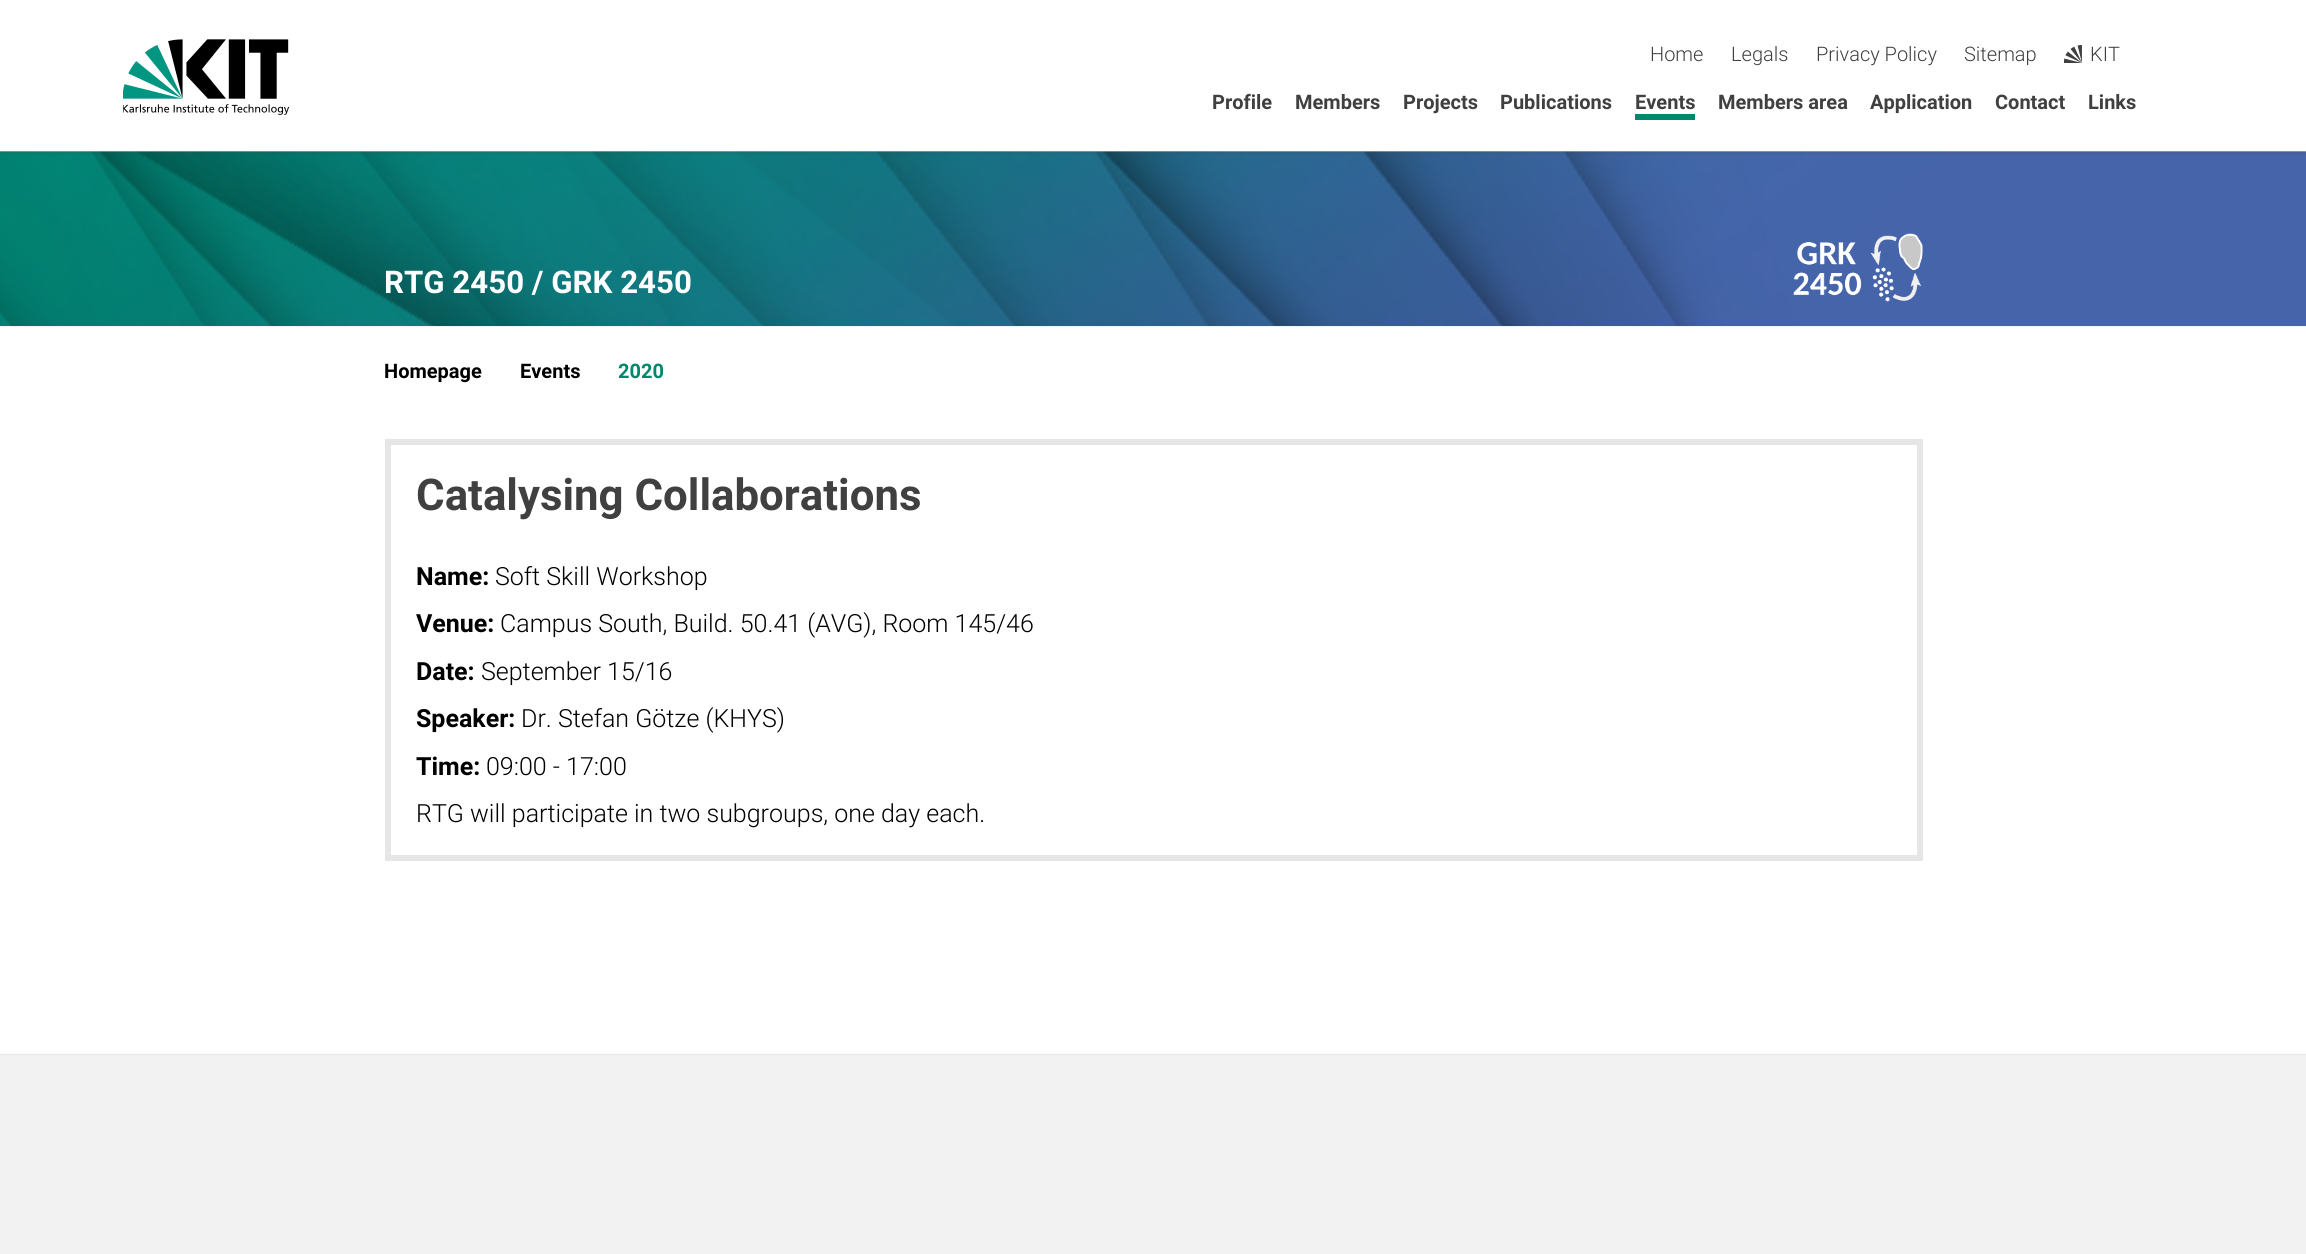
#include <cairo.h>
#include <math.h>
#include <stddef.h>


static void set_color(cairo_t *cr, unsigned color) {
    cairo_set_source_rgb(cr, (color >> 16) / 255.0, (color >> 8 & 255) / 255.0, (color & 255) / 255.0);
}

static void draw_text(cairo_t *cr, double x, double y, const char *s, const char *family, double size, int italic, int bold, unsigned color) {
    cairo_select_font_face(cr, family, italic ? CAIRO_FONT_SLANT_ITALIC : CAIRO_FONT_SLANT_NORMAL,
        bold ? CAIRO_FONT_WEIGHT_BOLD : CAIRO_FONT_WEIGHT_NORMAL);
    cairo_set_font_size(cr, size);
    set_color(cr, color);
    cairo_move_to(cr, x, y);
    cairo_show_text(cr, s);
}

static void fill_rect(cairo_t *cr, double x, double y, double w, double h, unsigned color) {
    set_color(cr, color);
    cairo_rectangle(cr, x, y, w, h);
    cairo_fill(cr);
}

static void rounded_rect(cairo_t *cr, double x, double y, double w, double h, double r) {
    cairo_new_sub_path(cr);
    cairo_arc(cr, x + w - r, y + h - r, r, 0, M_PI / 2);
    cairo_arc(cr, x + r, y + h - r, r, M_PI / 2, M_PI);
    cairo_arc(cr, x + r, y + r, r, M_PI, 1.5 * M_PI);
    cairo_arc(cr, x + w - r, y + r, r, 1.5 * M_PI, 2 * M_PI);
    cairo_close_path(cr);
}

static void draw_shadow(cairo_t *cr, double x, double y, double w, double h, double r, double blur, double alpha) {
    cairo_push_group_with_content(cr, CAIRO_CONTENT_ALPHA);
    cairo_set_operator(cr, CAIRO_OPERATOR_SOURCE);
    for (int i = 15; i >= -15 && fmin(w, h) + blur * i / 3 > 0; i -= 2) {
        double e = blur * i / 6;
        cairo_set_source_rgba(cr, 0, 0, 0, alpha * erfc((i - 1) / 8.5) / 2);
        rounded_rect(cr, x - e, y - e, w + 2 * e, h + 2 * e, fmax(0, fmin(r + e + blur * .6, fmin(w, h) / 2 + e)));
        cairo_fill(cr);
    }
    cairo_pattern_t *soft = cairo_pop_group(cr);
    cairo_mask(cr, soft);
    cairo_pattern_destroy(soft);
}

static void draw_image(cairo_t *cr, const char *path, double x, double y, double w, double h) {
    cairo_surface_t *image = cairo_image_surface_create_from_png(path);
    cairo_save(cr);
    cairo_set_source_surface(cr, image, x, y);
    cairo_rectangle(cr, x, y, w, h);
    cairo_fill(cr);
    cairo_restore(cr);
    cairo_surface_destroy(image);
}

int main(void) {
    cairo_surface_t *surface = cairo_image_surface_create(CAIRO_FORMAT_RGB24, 2306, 1254);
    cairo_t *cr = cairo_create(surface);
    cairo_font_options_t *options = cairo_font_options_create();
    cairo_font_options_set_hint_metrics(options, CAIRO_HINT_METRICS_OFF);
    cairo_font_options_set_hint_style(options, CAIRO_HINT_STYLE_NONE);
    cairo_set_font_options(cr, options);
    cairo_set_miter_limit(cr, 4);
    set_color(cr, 0xFFFFFF);
    cairo_paint(cr);
    draw_image(cr, "assets/img3.png", 0, 151, 2306, 176);
    cairo_save(cr);
    cairo_rectangle(cr, 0, 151, 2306, 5);
    cairo_clip(cr);
    set_color(cr, 0x404040);
    draw_shadow(cr, 0, 0, 2306, 151, 0, 3, 0.5);
    cairo_restore(cr);
    draw_image(cr, "assets/img1.png", 123, 39, 166, 76);
    draw_text(cr, 1650, 61, "Home", "Roboto Light", 20, 0, 0, 0x404040);
    draw_text(cr, 1731, 61, "Legals", "Roboto Light", 20, 0, 0, 0x404040);
    draw_text(cr, 1816, 61, "Privacy Policy", "Roboto Light", 20, 0, 0, 0x404040);
    draw_text(cr, 1964, 61, "Sitemap", "Roboto Light", 20, 0, 0, 0x404040);
    draw_image(cr, "assets/img2.png", 2064, 45, 18, 18);
    draw_text(cr, 2090, 61, "KIT", "Roboto Light", 20, 0, 0, 0x404040);
    draw_text(cr, 1212, 109, "Profile", "Roboto", 20, 0, 1, 0x404040);
    draw_text(cr, 1295, 109, "Members", "Roboto", 20, 0, 1, 0x404040);
    draw_text(cr, 1403, 109, "Projects", "Roboto", 20, 0, 1, 0x404040);
    draw_text(cr, 1500, 109, "Publications", "Roboto", 20, 0, 1, 0x404040);
    draw_text(cr, 1635, 109, "Events", "Roboto", 20, 0, 1, 0x404040);
    fill_rect(cr, 1635, 114, 60, 6, 0x00876C);
    draw_text(cr, 1718, 109, "Members area", "Roboto", 20, 0, 1, 0x404040);
    draw_text(cr, 1870, 109, "Application", "Roboto", 20, 0, 1, 0x404040);
    draw_text(cr, 1995, 109, "Contact", "Roboto", 20, 0, 1, 0x404040);
    draw_text(cr, 2088, 109, "Links", "Roboto", 20, 0, 1, 0x404040);
    draw_text(cr, 384, 293, "RTG 2450 / GRK 2450", "Roboto", 31.25, 0, 1, 0xFFFFFF);
    draw_image(cr, "assets/img4.png", 1793, 233, 130, 69);
    draw_text(cr, 384, 378, "Homepage", "Roboto", 20, 0, 1, 0x000000);
    draw_text(cr, 520, 378, "Events", "Roboto", 20, 0, 1, 0x000000);
    draw_text(cr, 618, 378, "2020", "Roboto", 20, 0, 1, 0x00876C);
    cairo_rectangle(cr, 388, 442, 1532, 416);
    set_color(cr, 0xE6E6E6);
    cairo_set_line_width(cr, 6);
    cairo_stroke(cr);
    draw_text(cr, 416, 510, "Catalysing Collaborations", "Roboto", 43.75, 0, 1, 0x404040);
    draw_text(cr, 416, 585, "Name:", "Roboto", 25, 0, 1, 0x000000);
    draw_text(cr, 495, 585, "Soft Skill Workshop", "Roboto Light", 25, 0, 0, 0x000000);
    draw_text(cr, 416, 632, "Venue:", "Roboto", 25, 0, 1, 0x000000);
    draw_text(cr, 500, 632, "Campus South, Build. 50.41 (AVG), Room 145/46", "Roboto Light", 25, 0, 0, 0x000000);
    draw_text(cr, 416, 680, "Date:", "Roboto", 25, 0, 1, 0x000000);
    draw_text(cr, 481, 680, "September 15/16", "Roboto Light", 25, 0, 0, 0x000000);
    draw_text(cr, 416, 727, "Speaker:", "Roboto", 25, 0, 1, 0x000000);
    draw_text(cr, 521, 727, "Dr. Stefan Götze (KHYS)", "Roboto Light", 25, 0, 0, 0x000000);
    draw_text(cr, 416, 775, "Time:", "Roboto", 25, 0, 1, 0x000000);
    draw_text(cr, 486, 775, "09:00 - 17:00", "Roboto Light", 25, 0, 0, 0x000000);
    draw_text(cr, 416, 822, "RTG will participate in two subgroups, one day each.", "Roboto Light", 25, 0, 0, 0x000000);
    fill_rect(cr, 0, 1055, 2306, 199, 0xF2F2F2);
    fill_rect(cr, 0, 1054, 2306, 1, 0xE6E6E6);
    cairo_surface_write_to_png(surface, "output.png");
    cairo_font_options_destroy(options);
    cairo_destroy(cr);
    cairo_surface_destroy(surface);
    return 0;
}
